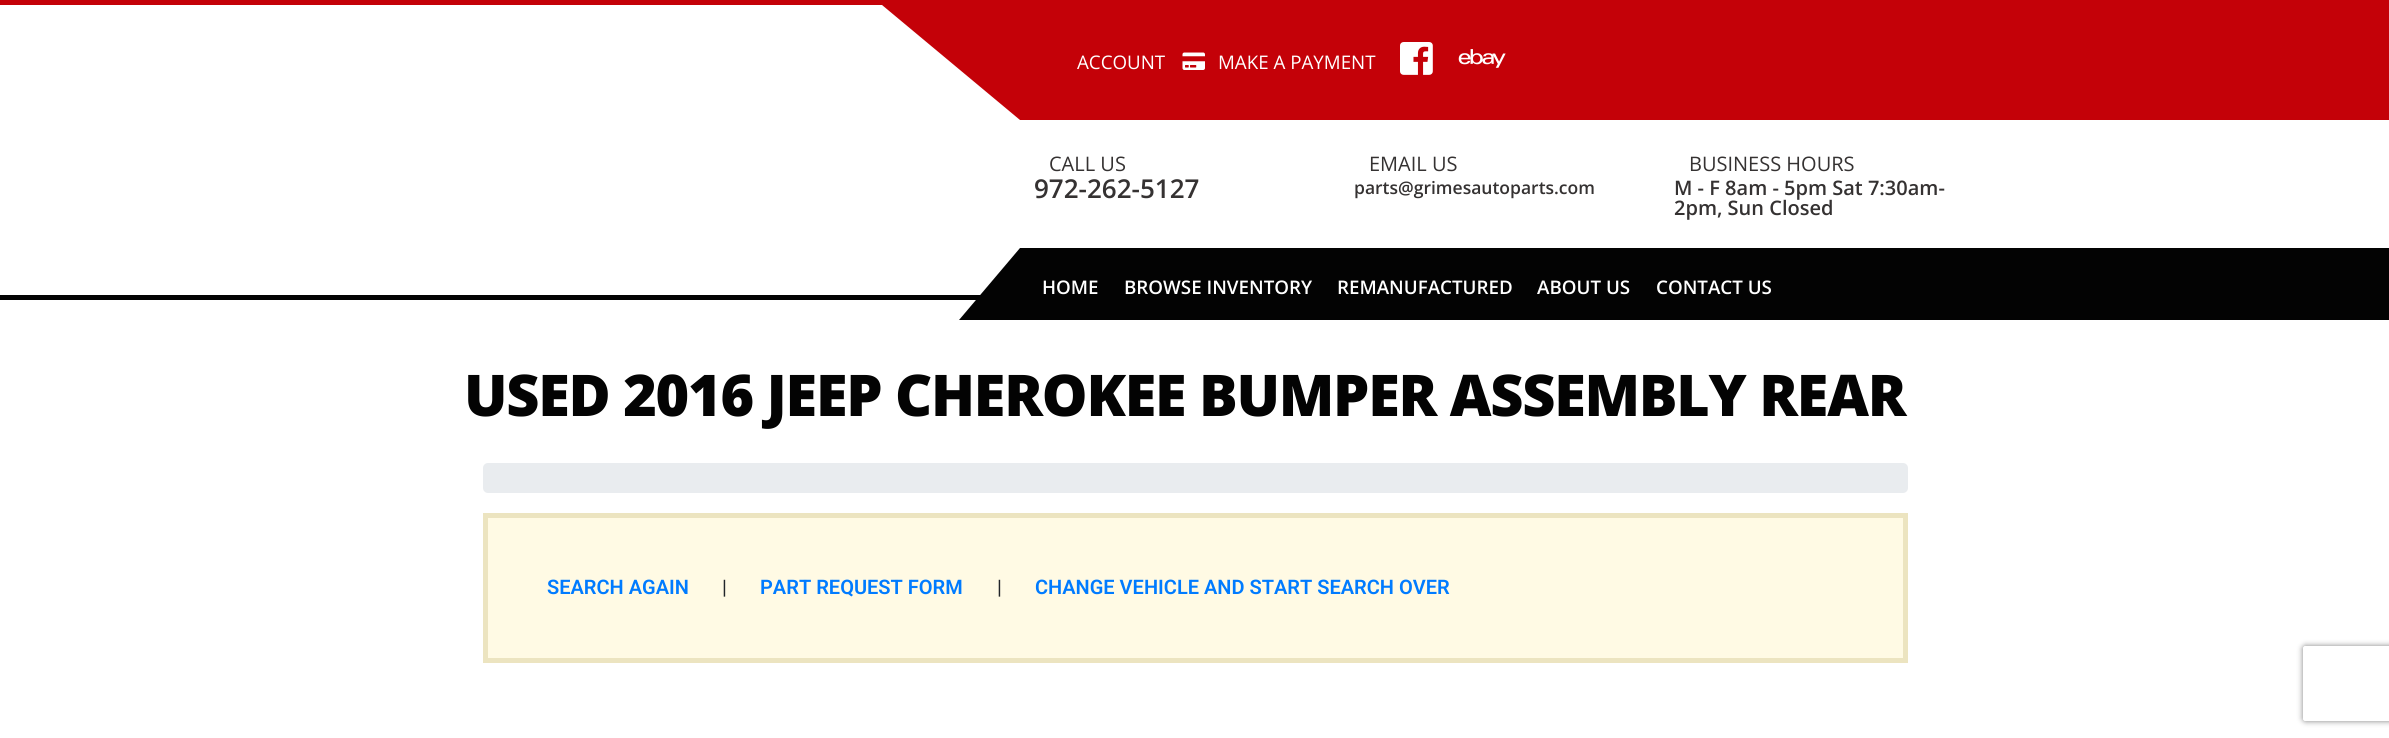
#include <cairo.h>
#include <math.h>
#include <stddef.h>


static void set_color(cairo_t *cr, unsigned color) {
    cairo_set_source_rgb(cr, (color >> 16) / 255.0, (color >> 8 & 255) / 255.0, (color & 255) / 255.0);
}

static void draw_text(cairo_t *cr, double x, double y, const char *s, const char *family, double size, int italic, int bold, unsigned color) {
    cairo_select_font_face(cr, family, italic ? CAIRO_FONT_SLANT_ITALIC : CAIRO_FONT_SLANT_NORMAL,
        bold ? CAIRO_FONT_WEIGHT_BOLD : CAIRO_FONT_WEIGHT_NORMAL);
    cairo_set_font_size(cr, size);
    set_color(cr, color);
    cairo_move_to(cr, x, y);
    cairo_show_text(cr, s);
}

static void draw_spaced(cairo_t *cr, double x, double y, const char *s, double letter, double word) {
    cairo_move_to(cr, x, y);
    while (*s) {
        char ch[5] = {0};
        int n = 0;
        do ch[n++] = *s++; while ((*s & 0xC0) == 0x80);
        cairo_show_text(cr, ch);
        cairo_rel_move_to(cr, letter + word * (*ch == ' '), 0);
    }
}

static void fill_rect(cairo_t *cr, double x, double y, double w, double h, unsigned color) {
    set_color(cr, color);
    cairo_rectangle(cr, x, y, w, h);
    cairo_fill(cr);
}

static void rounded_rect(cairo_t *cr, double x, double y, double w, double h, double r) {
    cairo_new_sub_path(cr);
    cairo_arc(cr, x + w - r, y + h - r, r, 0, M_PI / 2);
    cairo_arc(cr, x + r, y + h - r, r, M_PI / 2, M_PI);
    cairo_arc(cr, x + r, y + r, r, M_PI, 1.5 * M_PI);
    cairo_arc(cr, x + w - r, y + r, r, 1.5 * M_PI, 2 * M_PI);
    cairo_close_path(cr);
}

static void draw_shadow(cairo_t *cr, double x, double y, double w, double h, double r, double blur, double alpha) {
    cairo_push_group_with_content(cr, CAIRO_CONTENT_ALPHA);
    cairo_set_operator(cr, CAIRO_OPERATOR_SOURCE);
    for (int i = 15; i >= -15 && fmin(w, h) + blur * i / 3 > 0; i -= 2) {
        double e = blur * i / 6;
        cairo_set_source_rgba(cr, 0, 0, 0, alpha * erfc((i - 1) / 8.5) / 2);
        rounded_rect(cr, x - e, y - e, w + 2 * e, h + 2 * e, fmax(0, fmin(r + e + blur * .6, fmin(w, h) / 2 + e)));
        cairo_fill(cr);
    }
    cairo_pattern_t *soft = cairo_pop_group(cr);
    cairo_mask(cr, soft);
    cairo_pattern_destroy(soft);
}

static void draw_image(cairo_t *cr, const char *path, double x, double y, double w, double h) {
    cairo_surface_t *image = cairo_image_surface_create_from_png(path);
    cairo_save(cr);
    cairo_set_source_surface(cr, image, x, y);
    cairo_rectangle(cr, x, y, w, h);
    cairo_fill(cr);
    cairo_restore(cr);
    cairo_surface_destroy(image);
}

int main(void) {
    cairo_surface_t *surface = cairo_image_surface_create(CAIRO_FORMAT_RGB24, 2389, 738);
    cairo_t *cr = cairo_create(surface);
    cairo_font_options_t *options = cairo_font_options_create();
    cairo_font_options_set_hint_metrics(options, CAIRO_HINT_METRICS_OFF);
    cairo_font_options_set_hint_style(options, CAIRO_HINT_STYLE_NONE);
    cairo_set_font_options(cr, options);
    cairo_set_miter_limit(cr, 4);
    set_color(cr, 0xFFFFFF);
    cairo_paint(cr);
    fill_rect(cr, 0, 0, 2389, 5, 0xC40108);
    fill_rect(cr, 0, 295, 981, 5, 0x030303);
    set_color(cr, 0xC40108);
    cairo_new_path(cr);
    cairo_move_to(cr, 882, 5);
    cairo_line_to(cr, 1789, 5);
    cairo_line_to(cr, 1926, 120);
    cairo_line_to(cr, 1020, 120);
    cairo_close_path(cr);
    cairo_fill(cr);
    fill_rect(cr, 1789, 5, 600, 115, 0xC40108);
    draw_text(cr, 1077, 69, "ACCOUNT", "Open Sans", 18.75, 0, 0, 0xFFFFFF);
    draw_image(cr, "assets/img1.png", 1182, 52, 23, 18);
    draw_text(cr, 1218, 69, "MAKE A PAYMENT", "Open Sans", 18.75, 0, 0, 0xFFFFFF);
    draw_image(cr, "assets/img2.png", 1400, 42, 33, 33);
    draw_image(cr, "assets/img3.png", 1458, 49, 48, 19);
    draw_text(cr, 1049, 171, "CALL US", "Open Sans", 20, 0, 0, 0x353232);
    draw_text(cr, 1034, 198, "972-262-5127", "Open Sans SemiBold", 26, 0, 0, 0x353232);
    draw_text(cr, 1369, 171, "EMAIL US", "Open Sans", 20, 0, 0, 0x353232);
    draw_text(cr, 1354, 194, "parts@grimesautoparts.com", "Open Sans SemiBold", 17.5, 0, 0, 0x353232);
    draw_text(cr, 1689, 171, "BUSINESS HOURS", "Open Sans", 20, 0, 0, 0x353232);
    draw_text(cr, 1674, 195, "M - F 8am - 5pm Sat 7:30am-", "Open Sans SemiBold", 20, 0, 0, 0x353232);
    draw_text(cr, 1674, 215, "2pm, Sun Closed", "Open Sans SemiBold", 20, 0, 0, 0x353232);
    fill_rect(cr, 1865, 248, 524, 72, 0x030303);
    cairo_new_path(cr);
    cairo_move_to(cr, 1020, 248);
    cairo_line_to(cr, 1926, 248);
    cairo_line_to(cr, 1865, 320);
    cairo_line_to(cr, 959, 320);
    cairo_close_path(cr);
    cairo_fill(cr);
    draw_text(cr, 1042, 294, "HOME", "Open Sans SemiBold", 18.75, 0, 0, 0xFFFFFF);
    draw_text(cr, 1124, 294, "BROWSE INVENTORY", "Open Sans SemiBold", 18.75, 0, 0, 0xFFFFFF);
    draw_text(cr, 1337, 294, "REMANUFACTURED", "Open Sans SemiBold", 18.75, 0, 0, 0xFFFFFF);
    draw_text(cr, 1537, 294, "ABOUT US", "Open Sans SemiBold", 18.75, 0, 0, 0xFFFFFF);
    draw_text(cr, 1656, 294, "CONTACT US", "Open Sans SemiBold", 18.75, 0, 0, 0xFFFFFF);
    cairo_select_font_face(cr, "Open Sans ExtraBold", CAIRO_FONT_SLANT_NORMAL, CAIRO_FONT_WEIGHT_NORMAL);
    cairo_set_font_size(cr, 57.5);
    set_color(cr, 0x030303);
    draw_spaced(cr, 464, 416, "USED 2016 JEEP CHEROKEE BUMPER ASSEMBLY REAR", -1.25, 0);
    set_color(cr, 0xE9ECEF);
    rounded_rect(cr, 483, 463, 1425, 30, 5);
    cairo_fill(cr);
    set_color(cr, 0xFFFAE4);
    cairo_rectangle(cr, 485.5, 515.5, 1420, 145);
    cairo_fill_preserve(cr);
    set_color(cr, 0xECE4C0);
    cairo_set_line_width(cr, 5);
    cairo_stroke(cr);
    draw_text(cr, 547, 594, "SEARCH AGAIN", "Roboto SemiBold", 20, 0, 0, 0x007BFF);
    draw_text(cr, 722, 594, "|", "Roboto", 20, 0, 0, 0x212529);
    draw_text(cr, 760, 594, "PART REQUEST FORM", "Roboto SemiBold", 20, 0, 0, 0x007BFF);
    draw_text(cr, 997, 594, "|", "Roboto", 20, 0, 0, 0x212529);
    draw_text(cr, 1035, 594, "CHANGE VEHICLE AND START SEARCH OVER", "Roboto SemiBold", 20, 0, 0, 0x007BFF);
    cairo_save(cr);
    cairo_set_fill_rule(cr, CAIRO_FILL_RULE_EVEN_ODD);
    cairo_new_path(cr);
    cairo_move_to(cr, 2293, 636);
    cairo_line_to(cr, 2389, 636);
    cairo_line_to(cr, 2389, 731);
    cairo_line_to(cr, 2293, 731);
    cairo_close_path(cr);
    cairo_move_to(cr, 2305.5, 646);
    cairo_line_to(cr, 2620.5, 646);
    cairo_curve_to(cr, 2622, 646, 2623, 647, 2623, 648.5);
    cairo_line_to(cr, 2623, 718.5);
    cairo_curve_to(cr, 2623, 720, 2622, 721, 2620.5, 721);
    cairo_line_to(cr, 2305.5, 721);
    cairo_curve_to(cr, 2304, 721, 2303, 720, 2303, 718.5);
    cairo_line_to(cr, 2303, 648.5);
    cairo_curve_to(cr, 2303, 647, 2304, 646, 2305.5, 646);
    cairo_close_path(cr);
    cairo_clip(cr);
    set_color(cr, 0x808080);
    draw_shadow(cr, 2303, 646, 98, 75, 2.5, 3, 1);
    cairo_restore(cr);
    cairo_surface_write_to_png(surface, "output.png");
    cairo_font_options_destroy(options);
    cairo_destroy(cr);
    cairo_surface_destroy(surface);
    return 0;
}
